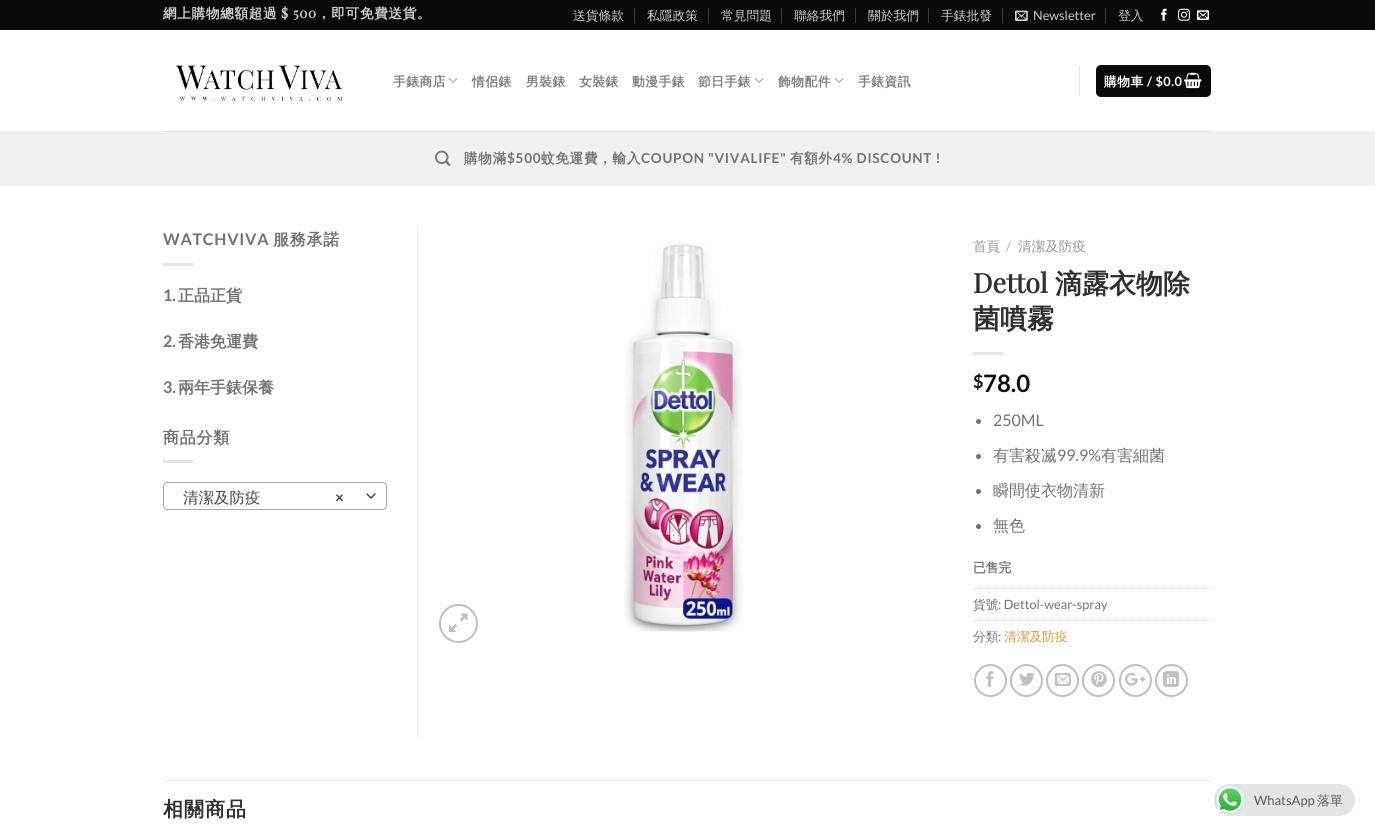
#include <cairo.h>
#include <math.h>
#include <stddef.h>


static void set_color(cairo_t *cr, unsigned color) {
    cairo_set_source_rgb(cr, (color >> 16) / 255.0, (color >> 8 & 255) / 255.0, (color & 255) / 255.0);
}

static void draw_text(cairo_t *cr, double x, double y, const char *s, const char *family, double size, int italic, int bold, unsigned color) {
    cairo_select_font_face(cr, family, italic ? CAIRO_FONT_SLANT_ITALIC : CAIRO_FONT_SLANT_NORMAL,
        bold ? CAIRO_FONT_WEIGHT_BOLD : CAIRO_FONT_WEIGHT_NORMAL);
    cairo_set_font_size(cr, size);
    set_color(cr, color);
    cairo_move_to(cr, x, y);
    cairo_show_text(cr, s);
}

static void draw_spaced(cairo_t *cr, double x, double y, const char *s, double letter, double word) {
    cairo_move_to(cr, x, y);
    while (*s) {
        char ch[5] = {0};
        int n = 0;
        do ch[n++] = *s++; while ((*s & 0xC0) == 0x80);
        cairo_show_text(cr, ch);
        cairo_rel_move_to(cr, letter + word * (*ch == ' '), 0);
    }
}

static void fill_rect(cairo_t *cr, double x, double y, double w, double h, unsigned color) {
    set_color(cr, color);
    cairo_rectangle(cr, x, y, w, h);
    cairo_fill(cr);
}

static void rounded_rect(cairo_t *cr, double x, double y, double w, double h, double r) {
    cairo_new_sub_path(cr);
    cairo_arc(cr, x + w - r, y + h - r, r, 0, M_PI / 2);
    cairo_arc(cr, x + r, y + h - r, r, M_PI / 2, M_PI);
    cairo_arc(cr, x + r, y + r, r, M_PI, 1.5 * M_PI);
    cairo_arc(cr, x + w - r, y + r, r, 1.5 * M_PI, 2 * M_PI);
    cairo_close_path(cr);
}

static void draw_image(cairo_t *cr, const char *path, double x, double y, double w, double h) {
    cairo_surface_t *image = cairo_image_surface_create_from_png(path);
    cairo_save(cr);
    cairo_set_source_surface(cr, image, x, y);
    cairo_rectangle(cr, x, y, w, h);
    cairo_fill(cr);
    cairo_restore(cr);
    cairo_surface_destroy(image);
}

int main(void) {
    cairo_surface_t *surface = cairo_image_surface_create(CAIRO_FORMAT_RGB24, 1375, 836);
    cairo_t *cr = cairo_create(surface);
    cairo_font_options_t *options = cairo_font_options_create();
    cairo_font_options_set_hint_metrics(options, CAIRO_HINT_METRICS_OFF);
    cairo_font_options_set_hint_style(options, CAIRO_HINT_STYLE_NONE);
    cairo_set_font_options(cr, options);
    cairo_set_miter_limit(cr, 4);
    set_color(cr, 0xFFFFFF);
    cairo_paint(cr);
    fill_rect(cr, 0, 0, 1375, 30, 0x0A0A0A);
    cairo_select_font_face(cr, "WenQuanYi Zen Hei", CAIRO_FONT_SLANT_NORMAL, CAIRO_FONT_WEIGHT_BOLD);
    cairo_set_font_size(cr, 13.6);
    set_color(cr, 0xCECECE);
    draw_spaced(cr, 163, 18, "網上購物總額超過", 0.7, 0);
    cairo_select_font_face(cr, "Playfair Display", CAIRO_FONT_SLANT_NORMAL, CAIRO_FONT_WEIGHT_BOLD);
    draw_spaced(cr, 281, 18, "$ 500", 0.7, 0);
    cairo_select_font_face(cr, "WenQuanYi Zen Hei", CAIRO_FONT_SLANT_NORMAL, CAIRO_FONT_WEIGHT_BOLD);
    draw_spaced(cr, 317, 18, "，即可免費送貨。", 0.7, 0);
    draw_text(cr, 573, 20, "送貨條款", "WenQuanYi Zen Hei Medium", 12.75, 0, 0, 0xCECECE);
    fill_rect(cr, 634, 8, 1, 15, 0x3B3B3B);
    draw_text(cr, 647, 20, "私隱政策", "WenQuanYi Zen Hei Medium", 12.75, 0, 0, 0xCECECE);
    fill_rect(cr, 708, 8, 1, 15, 0x3B3B3B);
    draw_text(cr, 721, 20, "常見問題", "WenQuanYi Zen Hei Medium", 12.75, 0, 0, 0xCECECE);
    fill_rect(cr, 781, 8, 1, 15, 0x3B3B3B);
    draw_text(cr, 794, 20, "聯絡我們", "WenQuanYi Zen Hei Medium", 12.75, 0, 0, 0xCECECE);
    fill_rect(cr, 855, 8, 1, 15, 0x3B3B3B);
    draw_text(cr, 868, 20, "關於我們", "WenQuanYi Zen Hei Medium", 12.75, 0, 0, 0xCECECE);
    fill_rect(cr, 928, 8, 1, 15, 0x3B3B3B);
    draw_text(cr, 941, 20, "手錶批發", "WenQuanYi Zen Hei Medium", 12.75, 0, 0, 0xCECECE);
    fill_rect(cr, 1002, 8, 1, 15, 0x3B3B3B);
    draw_image(cr, "assets/img1.png", 1015, 10, 13, 11);
    draw_text(cr, 1033, 20, "Newsletter", "Lato", 12.75, 0, 0, 0xCECECE);
    fill_rect(cr, 1105, 8, 1, 15, 0x3B3B3B);
    draw_text(cr, 1118, 20, "登入", "WenQuanYi Zen Hei Medium", 12.75, 0, 0, 0xCECECE);
    draw_image(cr, "assets/img2.png", 1161, 8, 6, 13);
    draw_image(cr, "assets/img3.png", 1178, 8, 12, 13);
    draw_image(cr, "assets/img4.png", 1197, 10, 12, 10);
    draw_image(cr, "assets/img5.png", 176, 65, 166, 36);
    cairo_select_font_face(cr, "WenQuanYi Zen Hei", CAIRO_FONT_SLANT_NORMAL, CAIRO_FONT_WEIGHT_BOLD);
    set_color(cr, 0x7D7D7D);
    draw_spaced(cr, 393, 86, "手錶商店", 0.5, 0);
    draw_image(cr, "assets/img6.png", 448, 77, 10, 6);
    draw_spaced(cr, 472, 86, "情侶錶", 0.5, 0);
    draw_spaced(cr, 526, 86, "男裝錶", 0.5, 0);
    draw_spaced(cr, 579, 86, "女裝錶", 0.5, 0);
    draw_spaced(cr, 632, 86, "動漫手錶", 0.5, 0);
    draw_spaced(cr, 698, 86, "節日手錶", 0.5, 0);
    draw_image(cr, "assets/img6.png", 754, 77, 10, 6);
    draw_spaced(cr, 778, 86, "飾物配件", 0.5, 0);
    draw_image(cr, "assets/img6.png", 834, 77, 10, 6);
    draw_spaced(cr, 858, 86, "手錶資訊", 0.5, 0);
    fill_rect(cr, 1079, 66, 1, 30, 0xE6E6E6);
    set_color(cr, 0x0A0A0A);
    rounded_rect(cr, 1096, 65, 115, 32, 5);
    cairo_fill(cr);
    cairo_rectangle(cr, 1096.5, 65.5, 114, 31);
    cairo_set_source_rgba(cr, 0, 0, 0, 0.05);
    cairo_set_line_width(cr, 1);
    cairo_stroke(cr);
    set_color(cr, 0xFFFFFF);
    draw_spaced(cr, 1104, 86, "購物車", 0.5, 0);
    cairo_select_font_face(cr, "Lato", CAIRO_FONT_SLANT_NORMAL, CAIRO_FONT_WEIGHT_BOLD);
    draw_spaced(cr, 1147, 86, "/ $0.0", 0.5, 0);
    draw_image(cr, "assets/img7.png", 1184, 72, 18, 17);
    fill_rect(cr, 0, 131, 1375, 55, 0xF1F1F1);
    fill_rect(cr, 163, 131, 1050, 1, 0xE4E4E4);
    draw_image(cr, "assets/img8.png", 435, 150, 16, 16);
    cairo_select_font_face(cr, "WenQuanYi Zen Hei", CAIRO_FONT_SLANT_NORMAL, CAIRO_FONT_WEIGHT_BOLD);
    cairo_set_font_size(cr, 13.6);
    set_color(cr, 0x727272);
    draw_spaced(cr, 464, 163, "購物滿", 0.7, 0);
    cairo_select_font_face(cr, "Lato", CAIRO_FONT_SLANT_NORMAL, CAIRO_FONT_WEIGHT_BOLD);
    draw_spaced(cr, 507, 163, "$500", 0.7, 0);
    cairo_select_font_face(cr, "WenQuanYi Zen Hei", CAIRO_FONT_SLANT_NORMAL, CAIRO_FONT_WEIGHT_BOLD);
    draw_spaced(cr, 541, 163, "蚊免運費，輸入", 0.7, 0);
    cairo_select_font_face(cr, "Lato", CAIRO_FONT_SLANT_NORMAL, CAIRO_FONT_WEIGHT_BOLD);
    draw_spaced(cr, 641, 163, "COUPON \"VIVALIFE\"", 0.7, 0);
    cairo_select_font_face(cr, "WenQuanYi Zen Hei", CAIRO_FONT_SLANT_NORMAL, CAIRO_FONT_WEIGHT_BOLD);
    draw_spaced(cr, 790, 163, "有額外", 0.7, 0);
    cairo_select_font_face(cr, "Lato", CAIRO_FONT_SLANT_NORMAL, CAIRO_FONT_WEIGHT_BOLD);
    draw_spaced(cr, 833, 163, "4% DISCOUNT !", 0.7, 0);
    fill_rect(cr, 417, 226, 1, 514, 0xECECEC);
    cairo_set_font_size(cr, 16);
    set_color(cr, 0x727272);
    draw_spaced(cr, 163, 245, "WATCHVIVA", 0.75, 0);
    cairo_select_font_face(cr, "WenQuanYi Zen Hei", CAIRO_FONT_SLANT_NORMAL, CAIRO_FONT_WEIGHT_BOLD);
    draw_spaced(cr, 273, 245, "服務承諾", 0.75, 0);
    fill_rect(cr, 163, 263, 30, 3, 0xE6E6E6);
    draw_text(cr, 163, 301, "1.", "Lato", 16, 0, 1, 0x727272);
    draw_text(cr, 178, 301, "正品正貨", "WenQuanYi Zen Hei", 16, 0, 1, 0x727272);
    draw_text(cr, 163, 347, "2.", "Lato", 16, 0, 1, 0x727272);
    draw_text(cr, 178, 347, "香港免運費", "WenQuanYi Zen Hei", 16, 0, 1, 0x727272);
    draw_text(cr, 163, 393, "3.", "Lato", 16, 0, 1, 0x727272);
    draw_text(cr, 178, 393, "兩年手錶保養", "WenQuanYi Zen Hei", 16, 0, 1, 0x727272);
    draw_spaced(cr, 163, 443, "商品分類", 0.75, 0);
    fill_rect(cr, 163, 460, 30, 3, 0xE6E6E6);
    cairo_new_path(cr);
    cairo_move_to(cr, 367, 494);
    cairo_line_to(cr, 371, 498);
    cairo_line_to(cr, 375, 494);
    set_color(cr, 0x333333);
    cairo_set_line_width(cr, 1.3);
    cairo_set_line_cap(cr, CAIRO_LINE_CAP_ROUND);
    cairo_set_line_join(cr, CAIRO_LINE_JOIN_ROUND);
    cairo_stroke(cr);
    rounded_rect(cr, 163.5, 482.5, 223, 27, 3.5);
    set_color(cr, 0xAAAAAA);
    cairo_set_line_width(cr, 1);
    cairo_set_line_cap(cr, CAIRO_LINE_CAP_BUTT);
    cairo_set_line_join(cr, CAIRO_LINE_JOIN_MITER);
    cairo_stroke(cr);
    draw_text(cr, 183, 503, "清潔及防疫", "WenQuanYi Zen Hei Medium", 15.5, 0, 0, 0x444444);
    draw_text(cr, 335, 503, "×", "Lato", 15.5, 0, 1, 0x444444);
    cairo_new_path(cr);
    cairo_arc(cr, 458.5, 623.5, 18.5, 0, 2 * M_PI);
    set_color(cr, 0xC0C0C0);
    cairo_set_line_width(cr, 2);
    cairo_stroke(cr);
    draw_image(cr, "assets/img9.png", 449, 613, 19, 20);
    draw_image(cr, "assets/img10.png", 624, 241, 119, 391);
    draw_text(cr, 973, 251, "首頁", "WenQuanYi Zen Hei Medium", 13.6, 0, 0, 0x949494);
    draw_text(cr, 1006, 251, "/", "Lato", 13.6, 0, 0, 0xB2B2B2);
    draw_text(cr, 1018, 251, "清潔及防疫", "WenQuanYi Zen Hei Medium", 13.6, 0, 0, 0x949494);
    draw_text(cr, 973, 293, "Dettol", "Playfair Display", 27, 0, 1, 0x303030);
    draw_text(cr, 1055, 293, "滴露衣物除", "WenQuanYi Zen Hei", 27, 0, 1, 0x303030);
    draw_text(cr, 973, 328, "菌噴霧", "WenQuanYi Zen Hei", 27, 0, 1, 0x303030);
    fill_rect(cr, 973, 352, 30, 3, 0xE6E6E6);
    draw_text(cr, 973, 388, "$", "Lato", 18, 0, 1, 0x111111);
    draw_text(cr, 983, 392, "78.0", "Lato", 24, 0, 1, 0x111111);
    set_color(cr, 0x727272);
    cairo_new_path(cr);
    cairo_arc(cr, 978.5, 421.5, 2.5, 0, 2 * M_PI);
    cairo_fill(cr);
    draw_text(cr, 993, 426, "250ML", "Lato", 16, 0, 0, 0x727272);
    cairo_new_path(cr);
    cairo_arc(cr, 978.5, 456.5, 2.5, 0, 2 * M_PI);
    cairo_fill(cr);
    draw_text(cr, 993, 461, "有害殺㓕", "WenQuanYi Zen Hei Medium", 16, 0, 0, 0x727272);
    draw_text(cr, 1057, 461, "99.9%", "Lato", 16, 0, 0, 0x727272);
    draw_text(cr, 1101, 461, "有害細菌", "WenQuanYi Zen Hei Medium", 16, 0, 0, 0x727272);
    cairo_new_path(cr);
    cairo_arc(cr, 978.5, 491.5, 2.5, 0, 2 * M_PI);
    cairo_fill(cr);
    draw_text(cr, 993, 496, "瞬間使衣物清新", "WenQuanYi Zen Hei Medium", 16, 0, 0, 0x727272);
    cairo_new_path(cr);
    cairo_arc(cr, 978.5, 526.5, 2.5, 0, 2 * M_PI);
    cairo_fill(cr);
    draw_text(cr, 993, 531, "無色", "WenQuanYi Zen Hei Medium", 16, 0, 0, 0x727272);
    draw_text(cr, 973, 572, "已售完", "WenQuanYi Zen Hei", 12.75, 0, 1, 0x727272);
    cairo_new_path(cr);
    cairo_move_to(cr, 973, 588.5);
    cairo_line_to(cr, 1213, 588.5);
    set_color(cr, 0xDDDDDD);
    cairo_set_line_width(cr, 1);
    cairo_set_dash(cr, (double[]){1, 1}, 2, 0);
    cairo_stroke(cr);
    draw_text(cr, 973, 609, "貨號", "WenQuanYi Zen Hei Medium", 12.75, 0, 0, 0x727272);
    draw_text(cr, 998, 609, ": Dettol-wear-spray", "Lato", 12.75, 0, 0, 0x727272);
    cairo_new_path(cr);
    cairo_move_to(cr, 973, 620.5);
    cairo_line_to(cr, 1213, 620.5);
    set_color(cr, 0xDDDDDD);
    cairo_stroke(cr);
    draw_text(cr, 973, 641, "分類", "WenQuanYi Zen Hei Medium", 12.75, 0, 0, 0x727272);
    draw_text(cr, 998, 641, ":", "Lato", 12.75, 0, 0, 0x727272);
    draw_text(cr, 1004, 641, "清潔及防疫", "WenQuanYi Zen Hei Medium", 12.75, 0, 0, 0xDD9933);
    cairo_new_path(cr);
    cairo_arc(cr, 990.5, 680.5, 15.5, 0, 2 * M_PI);
    set_color(cr, 0xC0C0C0);
    cairo_set_line_width(cr, 2);
    cairo_set_dash(cr, NULL, 0, 0);
    cairo_stroke(cr);
    draw_image(cr, "assets/img11.png", 986, 671, 8, 16);
    cairo_arc(cr, 1026.5, 680.5, 15.5, 0, 2 * M_PI);
    cairo_stroke(cr);
    draw_image(cr, "assets/img12.png", 1019, 672, 16, 14);
    cairo_arc(cr, 1062.5, 680.5, 15.5, 0, 2 * M_PI);
    cairo_stroke(cr);
    draw_image(cr, "assets/img13.png", 1055, 673, 16, 13);
    cairo_arc(cr, 1098.5, 680.5, 15.5, 0, 2 * M_PI);
    cairo_stroke(cr);
    draw_image(cr, "assets/img14.png", 1091, 671, 16, 16);
    cairo_arc(cr, 1135.5, 680.5, 15.5, 0, 2 * M_PI);
    cairo_stroke(cr);
    draw_image(cr, "assets/img15.png", 1125, 672, 21, 14);
    cairo_arc(cr, 1171.5, 680.5, 15.5, 0, 2 * M_PI);
    cairo_stroke(cr);
    draw_image(cr, "assets/img16.png", 1163, 671, 16, 16);
    fill_rect(cr, 163, 780, 1050, 1, 0xECECEC);
    cairo_select_font_face(cr, "WenQuanYi Zen Hei", CAIRO_FONT_SLANT_NORMAL, CAIRO_FONT_WEIGHT_BOLD);
    cairo_set_font_size(cr, 20);
    set_color(cr, 0x303030);
    draw_spaced(cr, 163, 816, "相關商品", 1, 0);
    set_color(cr, 0xE4E4E4);
    rounded_rect(cr, 1214, 784, 141, 32, 16);
    cairo_fill(cr);
    draw_image(cr, "assets/img17.png", 1216, 786, 28, 28);
    draw_text(cr, 1254, 805, "WhatsApp", "Lato", 13, 0, 0, 0x5B5B5B);
    draw_text(cr, 1317, 805, "落單", "WenQuanYi Zen Hei Medium", 13, 0, 0, 0x5B5B5B);
    cairo_surface_write_to_png(surface, "output.png");
    cairo_font_options_destroy(options);
    cairo_destroy(cr);
    cairo_surface_destroy(surface);
    return 0;
}
